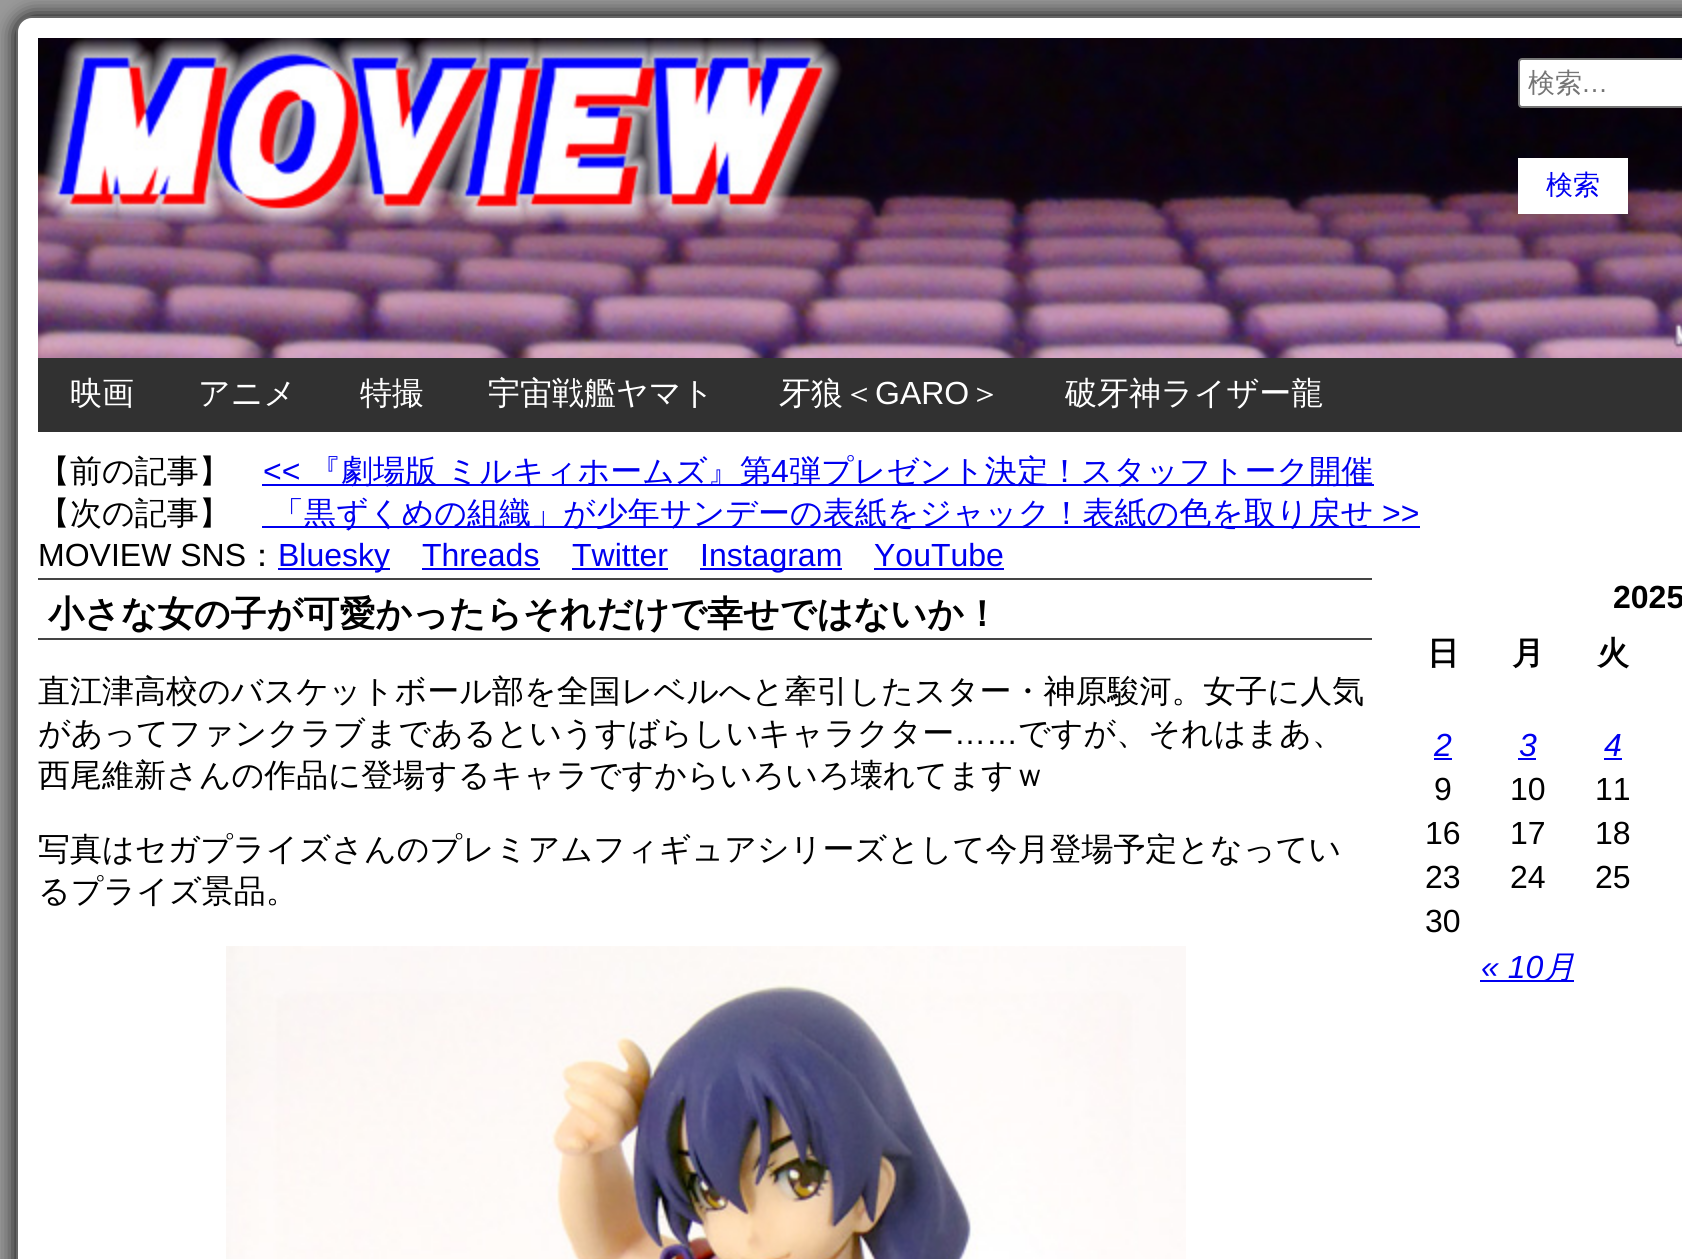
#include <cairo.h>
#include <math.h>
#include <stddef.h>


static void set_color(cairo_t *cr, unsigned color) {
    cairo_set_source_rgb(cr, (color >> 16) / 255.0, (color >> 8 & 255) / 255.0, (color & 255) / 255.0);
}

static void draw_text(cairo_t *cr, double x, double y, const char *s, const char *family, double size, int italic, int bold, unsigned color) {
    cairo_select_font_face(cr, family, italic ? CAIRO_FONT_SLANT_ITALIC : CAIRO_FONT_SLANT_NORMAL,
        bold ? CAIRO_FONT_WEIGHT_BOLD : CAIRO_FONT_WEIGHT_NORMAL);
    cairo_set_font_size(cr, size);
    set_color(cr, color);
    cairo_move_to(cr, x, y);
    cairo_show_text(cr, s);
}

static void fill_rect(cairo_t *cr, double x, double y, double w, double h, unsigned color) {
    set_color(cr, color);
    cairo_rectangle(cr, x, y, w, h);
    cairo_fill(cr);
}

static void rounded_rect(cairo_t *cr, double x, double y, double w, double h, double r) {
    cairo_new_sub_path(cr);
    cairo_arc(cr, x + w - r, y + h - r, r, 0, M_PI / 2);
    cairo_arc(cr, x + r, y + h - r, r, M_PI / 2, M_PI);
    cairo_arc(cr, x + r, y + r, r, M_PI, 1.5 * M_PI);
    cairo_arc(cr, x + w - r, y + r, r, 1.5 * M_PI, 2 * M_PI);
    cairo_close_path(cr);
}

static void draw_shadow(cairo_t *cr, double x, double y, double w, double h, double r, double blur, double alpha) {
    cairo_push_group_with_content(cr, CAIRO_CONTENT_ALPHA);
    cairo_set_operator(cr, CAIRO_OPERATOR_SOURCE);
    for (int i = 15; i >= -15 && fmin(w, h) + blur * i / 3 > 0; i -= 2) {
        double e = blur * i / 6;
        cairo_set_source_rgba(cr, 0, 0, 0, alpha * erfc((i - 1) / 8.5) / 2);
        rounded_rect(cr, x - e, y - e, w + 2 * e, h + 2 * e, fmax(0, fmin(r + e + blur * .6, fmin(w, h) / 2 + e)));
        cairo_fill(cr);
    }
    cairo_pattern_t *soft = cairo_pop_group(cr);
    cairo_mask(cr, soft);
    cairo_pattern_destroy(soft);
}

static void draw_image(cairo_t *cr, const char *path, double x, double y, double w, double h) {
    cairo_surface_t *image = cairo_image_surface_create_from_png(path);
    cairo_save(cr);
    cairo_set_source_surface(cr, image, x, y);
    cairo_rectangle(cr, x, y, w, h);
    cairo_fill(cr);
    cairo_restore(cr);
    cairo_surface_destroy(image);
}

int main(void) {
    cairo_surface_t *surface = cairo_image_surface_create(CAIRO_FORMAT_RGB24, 1682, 1259);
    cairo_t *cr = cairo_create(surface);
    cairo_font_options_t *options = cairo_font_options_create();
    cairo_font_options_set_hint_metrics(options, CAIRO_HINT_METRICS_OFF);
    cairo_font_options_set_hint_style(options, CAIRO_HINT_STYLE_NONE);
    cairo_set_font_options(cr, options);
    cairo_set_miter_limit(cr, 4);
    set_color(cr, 0x999999);
    cairo_paint(cr);
    set_color(cr, 0x000000);
    draw_shadow(cr, 16, 16, 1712, 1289, 16, 10, 1);
    set_color(cr, 0xFFFFFF);
    rounded_rect(cr, 17, 17, 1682, 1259, 15);
    cairo_fill_preserve(cr);
    set_color(cr, 0x666666);
    cairo_stroke(cr);
    draw_image(cr, "assets/img1.png", 38, 38, 1644, 320);
    set_color(cr, 0xFFFFFF);
    rounded_rect(cr, 1519, 59, 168, 48, 3);
    cairo_fill_preserve(cr);
    set_color(cr, 0x767676);
    cairo_stroke(cr);
    draw_text(cr, 1528, 92, "検索", "WenQuanYi Zen Hei Medium", 27, 0, 0, 0x757575);
    draw_text(cr, 1581, 92, "…", "Liberation Sans", 27, 0, 0, 0x757575);
    fill_rect(cr, 1518, 158, 110, 56, 0xFFFFFF);
    draw_text(cr, 1546, 194, "検索", "WenQuanYi Zen Hei Medium", 27, 0, 0, 0x0000F0);
    fill_rect(cr, 38, 358, 1644, 74, 0x313131);
    draw_text(cr, 70, 404, "映画", "WenQuanYi Zen Hei Medium", 32, 0, 0, 0xFFFFFF);
    draw_text(cr, 198, 404, "アニメ", "WenQuanYi Zen Hei Medium", 32, 0, 0, 0xFFFFFF);
    draw_text(cr, 360, 404, "特撮", "WenQuanYi Zen Hei Medium", 32, 0, 0, 0xFFFFFF);
    draw_text(cr, 488, 404, "宇宙戦艦ヤマト", "WenQuanYi Zen Hei Medium", 32, 0, 0, 0xFFFFFF);
    draw_text(cr, 779, 404, "牙狼＜", "WenQuanYi Zen Hei Medium", 32, 0, 0, 0xFFFFFF);
    draw_text(cr, 875, 404, "GARO", "Liberation Sans", 32, 0, 0, 0xFFFFFF);
    draw_text(cr, 969, 404, "＞", "WenQuanYi Zen Hei Medium", 32, 0, 0, 0xFFFFFF);
    draw_text(cr, 1065, 404, "破牙神ライザー龍", "WenQuanYi Zen Hei Medium", 32, 0, 0, 0xFFFFFF);
    draw_text(cr, 38, 482, "【前の記事】", "WenQuanYi Zen Hei Medium", 32, 0, 0, 0x000000);
    draw_text(cr, 263, 482, "<<", "Liberation Sans", 32, 0, 0, 0x0000F0);
    fill_rect(cr, 262, 484, 1112, 2, 0x0000F0);
    draw_text(cr, 309, 482, "『劇場版 ミルキィホームズ』第", "WenQuanYi Zen Hei Medium", 32, 0, 0, 0x0000F0);
    draw_text(cr, 771, 482, "4", "Liberation Sans", 32, 0, 0, 0x0000F0);
    draw_text(cr, 789, 482, "弾プレゼント決定！スタッフトーク開催", "WenQuanYi Zen Hei Medium", 32, 0, 0, 0x0000F0);
    draw_text(cr, 38, 524, "【次の記事】", "WenQuanYi Zen Hei Medium", 32, 0, 0, 0x000000);
    fill_rect(cr, 262, 526, 1158, 2, 0x0000F0);
    draw_text(cr, 272, 524, "「黒ずくめの組織」が少年サンデーの表紙をジャック！表紙の色を取り戻せ", "WenQuanYi Zen Hei Medium", 32, 0, 0, 0x0000F0);
    draw_text(cr, 1382, 524, ">>", "Liberation Sans", 32, 0, 0, 0x0000F0);
    draw_text(cr, 38, 566, "MOVIEW SNS", "Liberation Sans", 32, 0, 0, 0x000000);
    draw_text(cr, 246, 566, "：", "WenQuanYi Zen Hei Medium", 32, 0, 0, 0x000000);
    fill_rect(cr, 278, 568, 112, 2, 0x0000F0);
    draw_text(cr, 278, 566, "Bluesky", "Liberation Sans", 32, 0, 0, 0x0000F0);
    draw_text(cr, 422, 566, "Threads", "Liberation Sans", 32, 0, 0, 0x0000F0);
    fill_rect(cr, 422, 568, 118, 2, 0x0000F0);
    draw_text(cr, 572, 566, "Twitter", "Liberation Sans", 32, 0, 0, 0x0000F0);
    fill_rect(cr, 572, 568, 96, 2, 0x0000F0);
    fill_rect(cr, 700, 568, 142, 2, 0x0000F0);
    draw_text(cr, 700, 566, "Instagram", "Liberation Sans", 32, 0, 0, 0x0000F0);
    draw_text(cr, 874, 566, "YouTube", "Liberation Sans", 32, 0, 0, 0x0000F0);
    fill_rect(cr, 874, 568, 130, 2, 0x0000F0);
    fill_rect(cr, 38, 578, 1334, 2, 0x444444);
    fill_rect(cr, 38, 638, 1334, 2, 0x444444);
    draw_text(cr, 48, 626, "小さな女の子が可愛かったらそれだけで幸せではないか！", "WenQuanYi Zen Hei", 36, 0, 1, 0x000000);
    draw_text(cr, 38, 702, "直江津高校のバスケットボール部を全国レベルへと牽引したスター・神原駿河。女子に人気", "WenQuanYi Zen Hei Medium", 32, 0, 0, 0x000000);
    draw_text(cr, 38, 744, "があってファンクラブまであるというすばらしいキャラクター", "WenQuanYi Zen Hei Medium", 32, 0, 0, 0x000000);
    draw_text(cr, 954, 744, "……", "Liberation Sans", 32, 0, 0, 0x000000);
    draw_text(cr, 1018, 744, "ですが、それはまあ、", "WenQuanYi Zen Hei Medium", 32, 0, 0, 0x000000);
    draw_text(cr, 38, 786, "西尾維新さんの作品に登場するキャラですからいろいろ壊れてますｗ", "WenQuanYi Zen Hei Medium", 32, 0, 0, 0x000000);
    draw_text(cr, 38, 860, "写真はセガプライズさんのプレミアムフィギュアシリーズとして今月登場予定となってい", "WenQuanYi Zen Hei Medium", 32, 0, 0, 0x000000);
    draw_text(cr, 38, 902, "るプライズ景品。", "WenQuanYi Zen Hei Medium", 32, 0, 0, 0x000000);
    draw_image(cr, "assets/img2.png", 226, 946, 960, 313);
    draw_text(cr, 1613, 608, "2025", "Liberation Sans", 32, 0, 1, 0x000000);
    draw_text(cr, 1427, 664, "日", "WenQuanYi Zen Hei", 32, 0, 1, 0x000000);
    draw_text(cr, 1512, 664, "月", "WenQuanYi Zen Hei", 32, 0, 1, 0x000000);
    draw_text(cr, 1597, 664, "火", "WenQuanYi Zen Hei", 32, 0, 1, 0x000000);
    draw_text(cr, 1434, 756, "2", "Liberation Sans", 32, 1, 0, 0x0000F0);
    fill_rect(cr, 1434, 758, 18, 2, 0x0000F0);
    draw_text(cr, 1519, 756, "3", "Liberation Sans", 32, 1, 0, 0x0000F0);
    fill_rect(cr, 1518, 758, 18, 2, 0x0000F0);
    draw_text(cr, 1604, 756, "4", "Liberation Sans", 32, 1, 0, 0x0000F0);
    fill_rect(cr, 1604, 758, 18, 2, 0x0000F0);
    draw_text(cr, 1434, 800, "9", "Liberation Sans", 32, 0, 0, 0x000000);
    draw_text(cr, 1510, 800, "10", "Liberation Sans", 32, 0, 0, 0x000000);
    draw_text(cr, 1595, 800, "11", "Liberation Sans", 32, 0, 0, 0x000000);
    draw_text(cr, 1425, 844, "16", "Liberation Sans", 32, 0, 0, 0x000000);
    draw_text(cr, 1510, 844, "17", "Liberation Sans", 32, 0, 0, 0x000000);
    draw_text(cr, 1595, 844, "18", "Liberation Sans", 32, 0, 0, 0x000000);
    draw_text(cr, 1425, 888, "23", "Liberation Sans", 32, 0, 0, 0x000000);
    draw_text(cr, 1510, 888, "24", "Liberation Sans", 32, 0, 0, 0x000000);
    draw_text(cr, 1595, 888, "25", "Liberation Sans", 32, 0, 0, 0x000000);
    draw_text(cr, 1425, 932, "30", "Liberation Sans", 32, 0, 0, 0x000000);
    draw_text(cr, 1481, 978, "« 10", "Liberation Sans", 32, 1, 0, 0x0000F0);
    fill_rect(cr, 1480, 980, 94, 2, 0x0000F0);
    draw_text(cr, 1543, 978, "月", "WenQuanYi Zen Hei Medium", 32, 1, 0, 0x0000F0);
    cairo_surface_write_to_png(surface, "output.png");
    cairo_font_options_destroy(options);
    cairo_destroy(cr);
    cairo_surface_destroy(surface);
    return 0;
}
